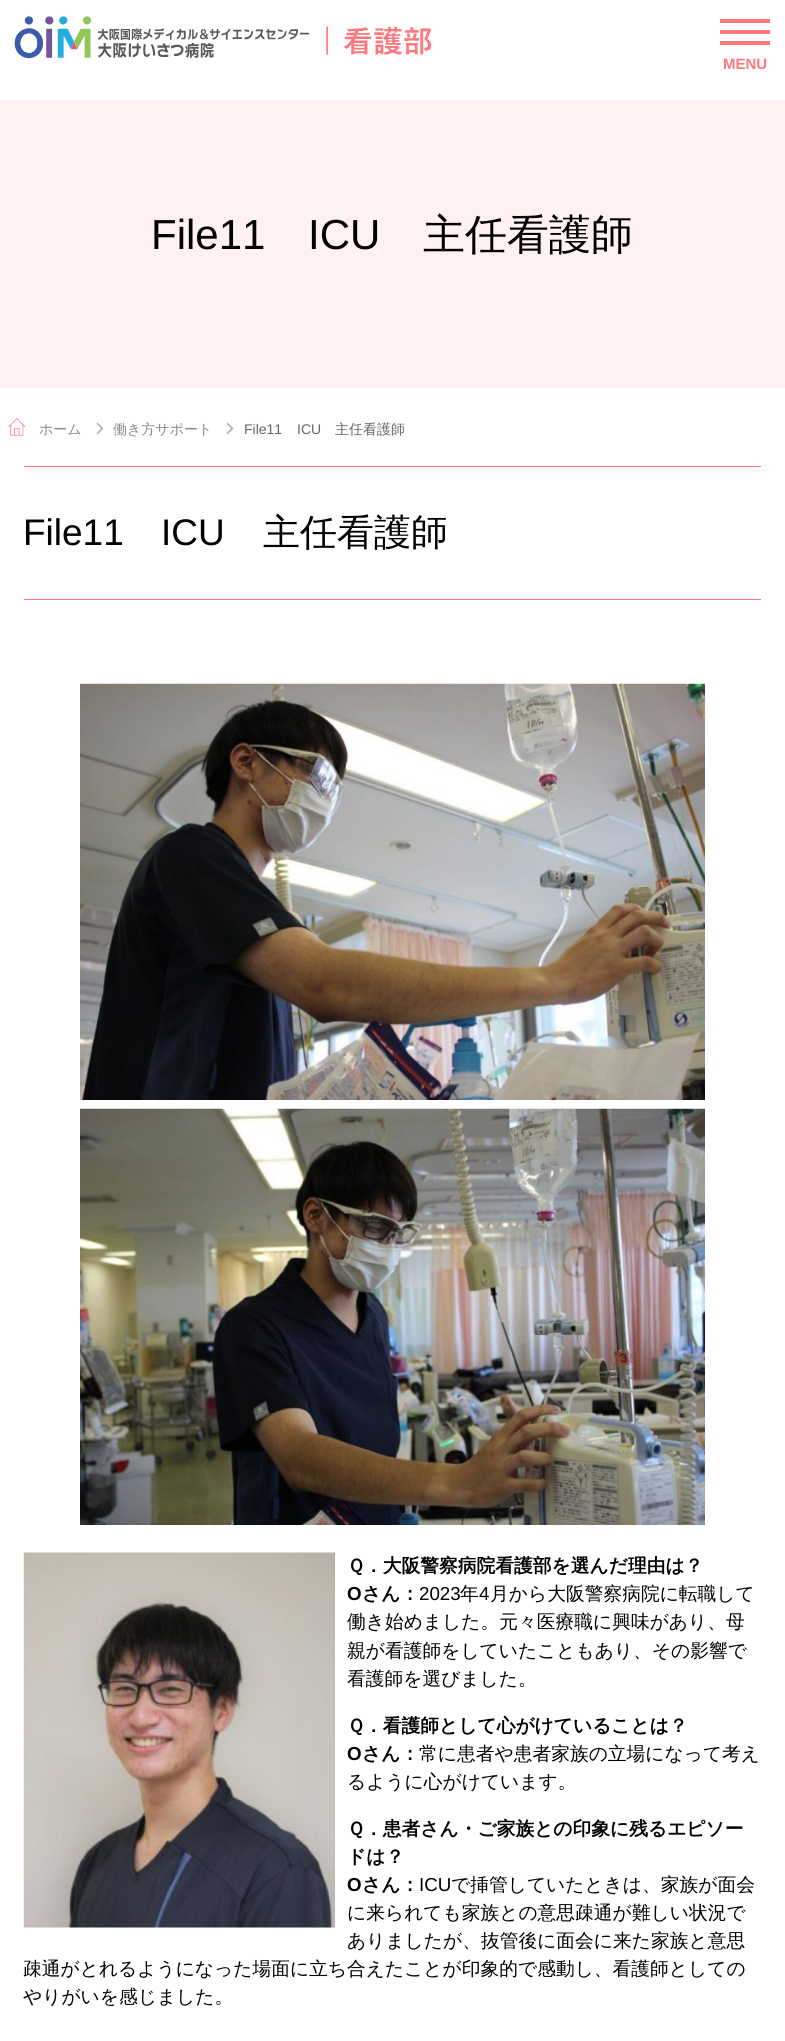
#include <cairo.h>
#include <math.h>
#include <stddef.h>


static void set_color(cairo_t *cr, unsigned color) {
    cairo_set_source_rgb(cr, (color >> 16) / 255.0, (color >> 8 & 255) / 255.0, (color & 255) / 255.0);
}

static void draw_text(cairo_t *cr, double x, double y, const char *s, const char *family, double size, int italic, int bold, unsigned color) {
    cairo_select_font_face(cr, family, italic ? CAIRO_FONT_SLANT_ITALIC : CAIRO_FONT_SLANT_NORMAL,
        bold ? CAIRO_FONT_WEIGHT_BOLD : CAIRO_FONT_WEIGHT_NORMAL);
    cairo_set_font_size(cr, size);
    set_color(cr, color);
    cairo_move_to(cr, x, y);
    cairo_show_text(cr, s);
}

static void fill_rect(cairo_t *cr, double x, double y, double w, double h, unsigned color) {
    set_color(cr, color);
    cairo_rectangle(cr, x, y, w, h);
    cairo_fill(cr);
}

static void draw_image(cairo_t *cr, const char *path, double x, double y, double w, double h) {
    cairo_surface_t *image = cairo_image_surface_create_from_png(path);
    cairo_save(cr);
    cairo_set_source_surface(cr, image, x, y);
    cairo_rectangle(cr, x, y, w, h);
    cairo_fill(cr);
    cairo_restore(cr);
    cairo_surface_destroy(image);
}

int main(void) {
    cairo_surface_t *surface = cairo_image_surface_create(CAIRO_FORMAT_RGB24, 785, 2041);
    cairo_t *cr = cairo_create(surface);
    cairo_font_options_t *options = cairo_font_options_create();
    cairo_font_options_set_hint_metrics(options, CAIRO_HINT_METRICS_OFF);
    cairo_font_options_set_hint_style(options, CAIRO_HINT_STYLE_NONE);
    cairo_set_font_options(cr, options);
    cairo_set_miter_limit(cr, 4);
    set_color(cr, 0xFFFFFF);
    cairo_paint(cr);
    draw_image(cr, "assets/img1.png", 14, 16, 417, 43);
    fill_rect(cr, 720, 19, 50, 4, 0xFF777D);
    fill_rect(cr, 720, 30, 50, 4, 0xFF777D);
    fill_rect(cr, 720, 41, 50, 4, 0xFF777D);
    draw_text(cr, 723, 69, "MENU", "Liberation Sans", 15, 0, 1, 0xFF777D);
    fill_rect(cr, 0, 100, 785, 288, 0xFFF1F1);
    draw_text(cr, 151, 249, "File11", "Liberation Sans", 42, 0, 0, 0x000000);
    draw_text(cr, 308, 249, "ICU", "Liberation Sans", 42, 0, 0, 0x000000);
    draw_text(cr, 423, 249, "主任看護師", "WenQuanYi Zen Hei Medium", 42, 0, 0, 0x000000);
    draw_image(cr, "assets/img2.png", 8, 418, 18, 18);
    draw_image(cr, "assets/img3.png", 96, 422, 8, 13);
    draw_text(cr, 39, 434, "ホーム", "WenQuanYi Zen Hei Medium", 14, 0, 0, 0x888888);
    draw_image(cr, "assets/img3.png", 226, 422, 8, 13);
    draw_text(cr, 113, 434, "働き方サポート", "WenQuanYi Zen Hei Medium", 14, 0, 0, 0x888888);
    draw_text(cr, 244, 434, "File11", "Liberation Sans", 14, 0, 0, 0x666666);
    draw_text(cr, 297, 434, "ICU", "Liberation Sans", 14, 0, 0, 0x666666);
    draw_text(cr, 335, 434, "主任看護師", "WenQuanYi Zen Hei Medium", 14, 0, 0, 0x666666);
    fill_rect(cr, 24, 466, 737, 1, 0xFF777D);
    fill_rect(cr, 24, 599, 737, 1, 0xFF777D);
    draw_text(cr, 23, 545, "File11", "Liberation Sans", 37, 0, 0, 0x000000);
    draw_text(cr, 161, 545, "ICU", "Liberation Sans", 37, 0, 0, 0x000000);
    draw_text(cr, 263, 545, "主任看護師", "WenQuanYi Zen Hei Medium", 37, 0, 0, 0x000000);
    draw_image(cr, "assets/img4.png", 80, 683, 625, 417);
    draw_image(cr, "assets/img5.png", 80, 1108, 625, 417);
    draw_image(cr, "assets/img6.png", 23, 1552, 312, 376);
    draw_text(cr, 347, 1572, "Ｑ．大阪警察病院看護部を選んだ理由は？", "WenQuanYi Zen Hei", 18.75, 0, 1, 0x000000);
    draw_text(cr, 347, 1600, "O", "Liberation Sans", 18.75, 0, 1, 0x000000);
    draw_text(cr, 362, 1600, "さん：", "WenQuanYi Zen Hei", 18.75, 0, 1, 0x000000);
    draw_text(cr, 419, 1600, "2023", "Liberation Sans", 18.75, 0, 0, 0x000000);
    draw_text(cr, 460, 1600, "年", "WenQuanYi Zen Hei Medium", 18.75, 0, 0, 0x000000);
    draw_text(cr, 479, 1600, "4", "Liberation Sans", 18.75, 0, 0, 0x000000);
    draw_text(cr, 490, 1600, "月から大阪警察病院に転職して", "WenQuanYi Zen Hei Medium", 18.75, 0, 0, 0x000000);
    draw_text(cr, 347, 1628, "働き始めました。元々医療職に興味があり、母", "WenQuanYi Zen Hei Medium", 18.75, 0, 0, 0x000000);
    draw_text(cr, 347, 1657, "親が看護師をしていたこともあり、その影響で", "WenQuanYi Zen Hei Medium", 18.75, 0, 0, 0x000000);
    draw_text(cr, 347, 1685, "看護師を選びました。", "WenQuanYi Zen Hei Medium", 18.75, 0, 0, 0x000000);
    draw_text(cr, 347, 1732, "Ｑ．看護師として心がけていることは？", "WenQuanYi Zen Hei", 18.75, 0, 1, 0x000000);
    draw_text(cr, 347, 1760, "O", "Liberation Sans", 18.75, 0, 1, 0x000000);
    draw_text(cr, 362, 1760, "さん：", "WenQuanYi Zen Hei", 18.75, 0, 1, 0x000000);
    draw_text(cr, 419, 1760, "常に患者や患者家族の立場になって考え", "WenQuanYi Zen Hei Medium", 18.75, 0, 0, 0x000000);
    draw_text(cr, 347, 1788, "るように心がけています。", "WenQuanYi Zen Hei Medium", 18.75, 0, 0, 0x000000);
    draw_text(cr, 347, 1835, "Ｑ．患者さん・ご家族との印象に残るエピソー", "WenQuanYi Zen Hei", 18.75, 0, 1, 0x000000);
    draw_text(cr, 347, 1863, "ドは？", "WenQuanYi Zen Hei", 18.75, 0, 1, 0x000000);
    draw_text(cr, 347, 1891, "O", "Liberation Sans", 18.75, 0, 1, 0x000000);
    draw_text(cr, 362, 1891, "さん：", "WenQuanYi Zen Hei", 18.75, 0, 1, 0x000000);
    draw_text(cr, 419, 1891, "ICU", "Liberation Sans", 18.75, 0, 0, 0x000000);
    draw_text(cr, 451, 1891, "で挿管していたときは、家族が面会", "WenQuanYi Zen Hei Medium", 18.75, 0, 0, 0x000000);
    draw_text(cr, 347, 1919, "に来られても家族との意思疎通が難しい状況で", "WenQuanYi Zen Hei Medium", 18.75, 0, 0, 0x000000);
    draw_text(cr, 347, 1947, "ありましたが、抜管後に面会に来た家族と意思", "WenQuanYi Zen Hei Medium", 18.75, 0, 0, 0x000000);
    draw_text(cr, 23, 1975, "疎通がとれるようになった場面に立ち合えたことが印象的で感動し、看護師としての", "WenQuanYi Zen Hei Medium", 18.75, 0, 0, 0x000000);
    draw_text(cr, 23, 2003, "やりがいを感じました。", "WenQuanYi Zen Hei Medium", 18.75, 0, 0, 0x000000);
    cairo_surface_write_to_png(surface, "output.png");
    cairo_font_options_destroy(options);
    cairo_destroy(cr);
    cairo_surface_destroy(surface);
    return 0;
}
